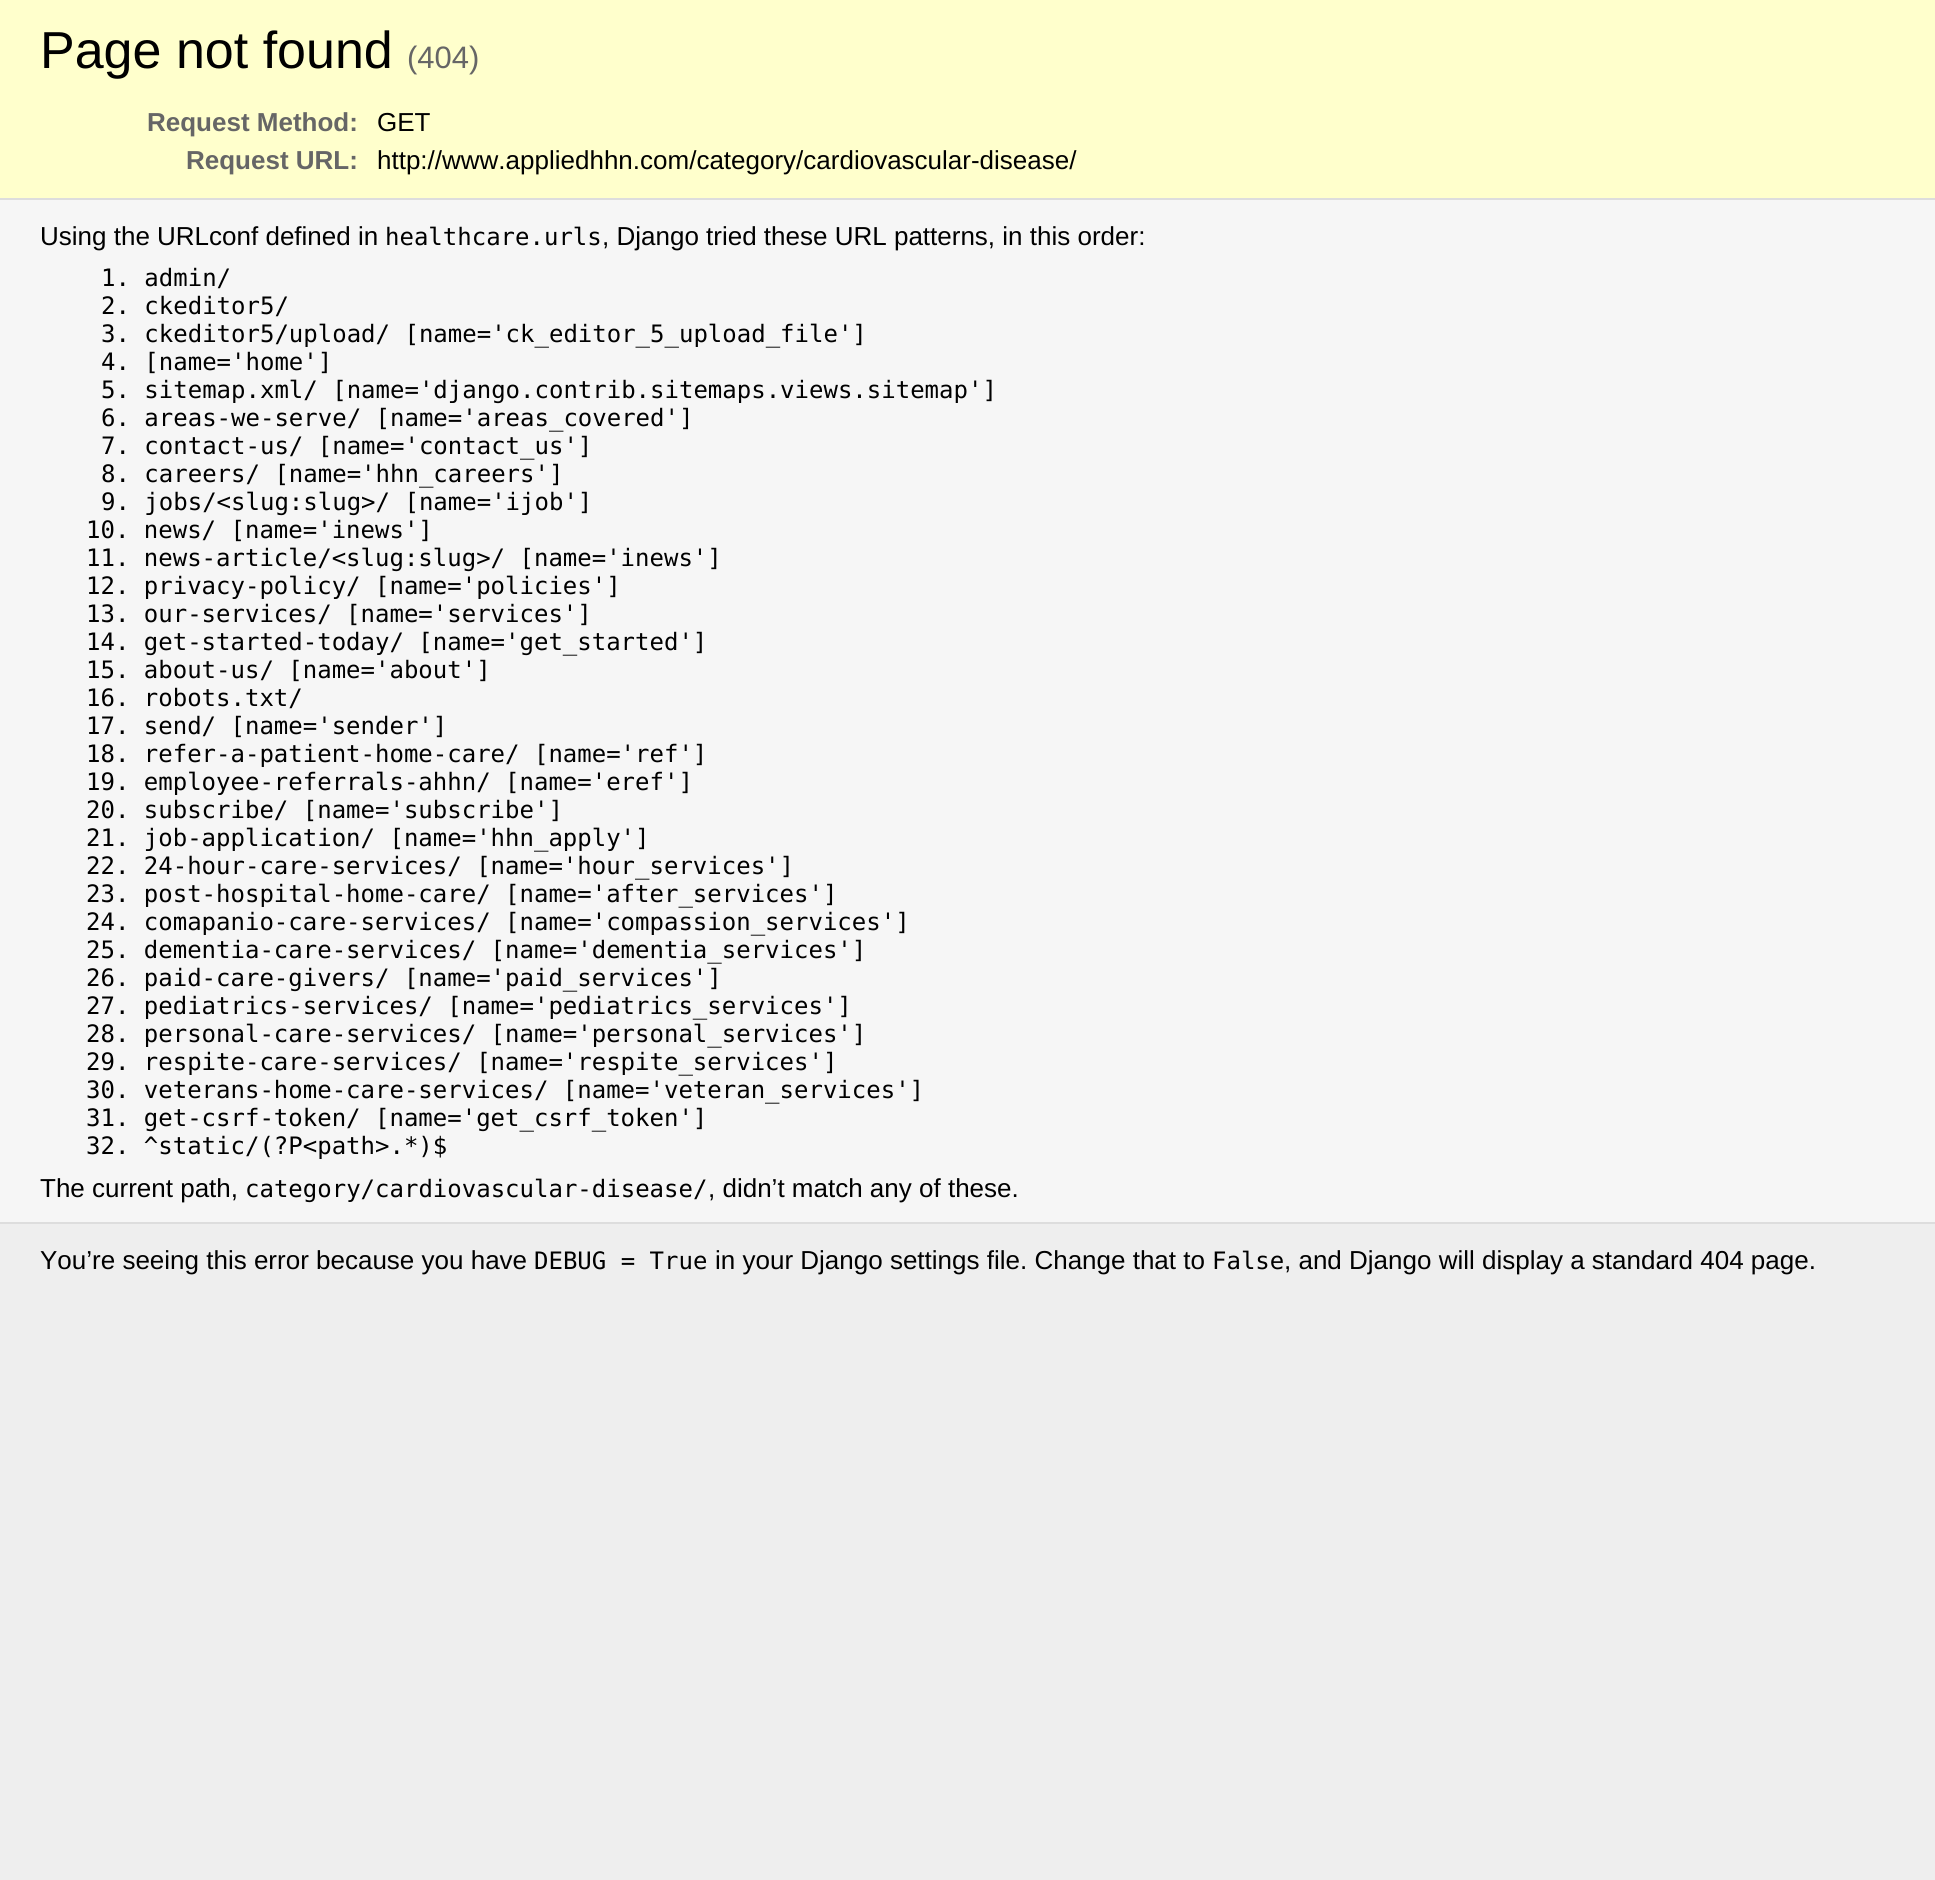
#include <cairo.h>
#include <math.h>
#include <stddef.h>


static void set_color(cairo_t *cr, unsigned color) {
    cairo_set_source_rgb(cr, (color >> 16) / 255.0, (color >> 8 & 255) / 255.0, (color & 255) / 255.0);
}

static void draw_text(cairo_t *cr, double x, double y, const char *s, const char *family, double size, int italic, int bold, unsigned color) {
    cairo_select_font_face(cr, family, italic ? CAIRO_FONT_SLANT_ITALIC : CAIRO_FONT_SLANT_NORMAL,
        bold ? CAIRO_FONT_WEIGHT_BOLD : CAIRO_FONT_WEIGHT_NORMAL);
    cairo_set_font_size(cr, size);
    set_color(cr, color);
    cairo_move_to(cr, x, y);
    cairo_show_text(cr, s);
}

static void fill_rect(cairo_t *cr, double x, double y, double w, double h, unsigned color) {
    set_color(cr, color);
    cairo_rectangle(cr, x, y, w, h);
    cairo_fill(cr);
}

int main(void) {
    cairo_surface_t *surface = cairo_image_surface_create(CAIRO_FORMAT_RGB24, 1935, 1880);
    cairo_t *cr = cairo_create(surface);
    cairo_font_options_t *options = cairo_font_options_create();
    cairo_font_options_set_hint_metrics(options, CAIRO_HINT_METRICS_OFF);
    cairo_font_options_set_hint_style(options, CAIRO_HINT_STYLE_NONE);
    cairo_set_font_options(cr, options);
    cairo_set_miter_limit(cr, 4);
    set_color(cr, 0xEEEEEE);
    cairo_paint(cr);
    fill_rect(cr, 0, 0, 1935, 198, 0xFFFFCC);
    fill_rect(cr, 0, 198, 1935, 2, 0xDDDDDD);
    draw_text(cr, 40, 68, "Page not found", "Liberation Sans", 52, 0, 0, 0x000000);
    draw_text(cr, 407, 68, "(404)", "Liberation Sans", 31, 0, 0, 0x666666);
    draw_text(cr, 147, 131, "Request Method:", "Liberation Sans", 26, 0, 1, 0x666666);
    draw_text(cr, 377, 131, "GET", "Liberation Sans", 26, 0, 0, 0x000000);
    draw_text(cr, 186, 169, "Request URL:", "Liberation Sans", 26, 0, 1, 0x666666);
    draw_text(cr, 377, 169, "http://www.appliedhhn.com/category/cardiovascular-disease/", "Liberation Sans", 26, 0, 0, 0x000000);
    fill_rect(cr, 0, 200, 1935, 1022, 0xF6F6F6);
    fill_rect(cr, 0, 1222, 1935, 2, 0xDDDDDD);
    draw_text(cr, 40, 245, "Using the URLconf defined in", "Liberation Sans", 26, 0, 0, 0x000000);
    draw_text(cr, 385, 245, "healthcare.urls", "DejaVu Sans Mono", 24, 0, 0, 0x000000);
    draw_text(cr, 602, 245, ", Django tried these URL patterns, in this order:", "Liberation Sans", 26, 0, 0, 0x000000);
    draw_text(cr, 101, 286, "1. admin/", "DejaVu Sans Mono", 24, 0, 0, 0x000000);
    draw_text(cr, 101, 314, "2. ckeditor5/", "DejaVu Sans Mono", 24, 0, 0, 0x000000);
    draw_text(cr, 101, 342, "3. ckeditor5/upload/ [name='ck_editor_5_upload_file']", "DejaVu Sans Mono", 24, 0, 0, 0x000000);
    draw_text(cr, 101, 370, "4. [name='home']", "DejaVu Sans Mono", 24, 0, 0, 0x000000);
    draw_text(cr, 101, 398, "5. sitemap.xml/ [name='django.contrib.sitemaps.views.sitemap']", "DejaVu Sans Mono", 24, 0, 0, 0x000000);
    draw_text(cr, 101, 426, "6. areas-we-serve/ [name='areas_covered']", "DejaVu Sans Mono", 24, 0, 0, 0x000000);
    draw_text(cr, 101, 454, "7. contact-us/ [name='contact_us']", "DejaVu Sans Mono", 24, 0, 0, 0x000000);
    draw_text(cr, 101, 482, "8. careers/ [name='hhn_careers']", "DejaVu Sans Mono", 24, 0, 0, 0x000000);
    draw_text(cr, 101, 510, "9. jobs/<slug:slug>/ [name='ijob']", "DejaVu Sans Mono", 24, 0, 0, 0x000000);
    draw_text(cr, 86, 538, "10. news/ [name='inews']", "DejaVu Sans Mono", 24, 0, 0, 0x000000);
    draw_text(cr, 86, 566, "11. news-article/<slug:slug>/ [name='inews']", "DejaVu Sans Mono", 24, 0, 0, 0x000000);
    draw_text(cr, 86, 594, "12. privacy-policy/ [name='policies']", "DejaVu Sans Mono", 24, 0, 0, 0x000000);
    draw_text(cr, 86, 622, "13. our-services/ [name='services']", "DejaVu Sans Mono", 24, 0, 0, 0x000000);
    draw_text(cr, 86, 650, "14. get-started-today/ [name='get_started']", "DejaVu Sans Mono", 24, 0, 0, 0x000000);
    draw_text(cr, 86, 678, "15. about-us/ [name='about']", "DejaVu Sans Mono", 24, 0, 0, 0x000000);
    draw_text(cr, 86, 706, "16. robots.txt/", "DejaVu Sans Mono", 24, 0, 0, 0x000000);
    draw_text(cr, 86, 734, "17. send/ [name='sender']", "DejaVu Sans Mono", 24, 0, 0, 0x000000);
    draw_text(cr, 86, 762, "18. refer-a-patient-home-care/ [name='ref']", "DejaVu Sans Mono", 24, 0, 0, 0x000000);
    draw_text(cr, 86, 790, "19. employee-referrals-ahhn/ [name='eref']", "DejaVu Sans Mono", 24, 0, 0, 0x000000);
    draw_text(cr, 86, 818, "20. subscribe/ [name='subscribe']", "DejaVu Sans Mono", 24, 0, 0, 0x000000);
    draw_text(cr, 86, 846, "21. job-application/ [name='hhn_apply']", "DejaVu Sans Mono", 24, 0, 0, 0x000000);
    draw_text(cr, 86, 874, "22. 24-hour-care-services/ [name='hour_services']", "DejaVu Sans Mono", 24, 0, 0, 0x000000);
    draw_text(cr, 86, 902, "23. post-hospital-home-care/ [name='after_services']", "DejaVu Sans Mono", 24, 0, 0, 0x000000);
    draw_text(cr, 86, 930, "24. comapanio-care-services/ [name='compassion_services']", "DejaVu Sans Mono", 24, 0, 0, 0x000000);
    draw_text(cr, 86, 958, "25. dementia-care-services/ [name='dementia_services']", "DejaVu Sans Mono", 24, 0, 0, 0x000000);
    draw_text(cr, 86, 986, "26. paid-care-givers/ [name='paid_services']", "DejaVu Sans Mono", 24, 0, 0, 0x000000);
    draw_text(cr, 86, 1014, "27. pediatrics-services/ [name='pediatrics_services']", "DejaVu Sans Mono", 24, 0, 0, 0x000000);
    draw_text(cr, 86, 1042, "28. personal-care-services/ [name='personal_services']", "DejaVu Sans Mono", 24, 0, 0, 0x000000);
    draw_text(cr, 86, 1070, "29. respite-care-services/ [name='respite_services']", "DejaVu Sans Mono", 24, 0, 0, 0x000000);
    draw_text(cr, 86, 1098, "30. veterans-home-care-services/ [name='veteran_services']", "DejaVu Sans Mono", 24, 0, 0, 0x000000);
    draw_text(cr, 86, 1126, "31. get-csrf-token/ [name='get_csrf_token']", "DejaVu Sans Mono", 24, 0, 0, 0x000000);
    draw_text(cr, 86, 1154, "32. ^static/(?P<path>.*)$", "DejaVu Sans Mono", 24, 0, 0, 0x000000);
    draw_text(cr, 40, 1197, "The current path,", "Liberation Sans", 26, 0, 0, 0x000000);
    draw_text(cr, 245, 1197, "category/cardiovascular-disease/", "DejaVu Sans Mono", 24, 0, 0, 0x000000);
    draw_text(cr, 708, 1197, ", didn’t match any of these.", "Liberation Sans", 26, 0, 0, 0x000000);
    draw_text(cr, 40, 1269, "You’re seeing this error because you have", "Liberation Sans", 26, 0, 0, 0x000000);
    draw_text(cr, 534, 1269, "DEBUG = True", "DejaVu Sans Mono", 24, 0, 0, 0x000000);
    draw_text(cr, 715, 1269, "in your Django settings file. Change that to", "Liberation Sans", 26, 0, 0, 0x000000);
    draw_text(cr, 1212, 1269, "False", "DejaVu Sans Mono", 24, 0, 0, 0x000000);
    draw_text(cr, 1284, 1269, ", and Django will display a standard 404 page.", "Liberation Sans", 26, 0, 0, 0x000000);
    cairo_surface_write_to_png(surface, "output.png");
    cairo_font_options_destroy(options);
    cairo_destroy(cr);
    cairo_surface_destroy(surface);
    return 0;
}
